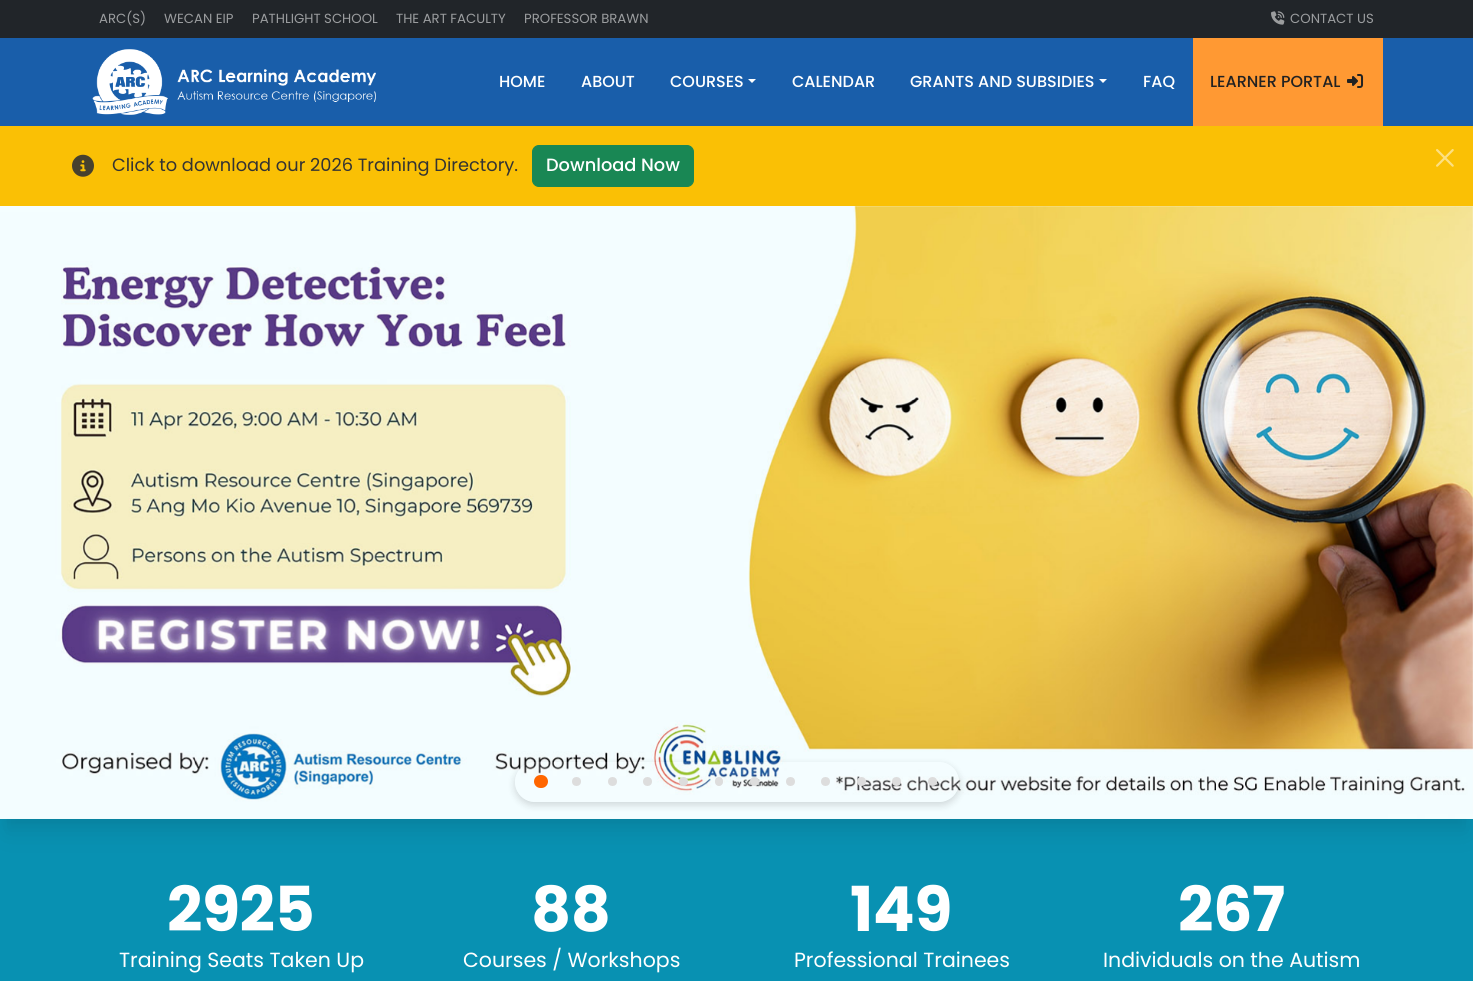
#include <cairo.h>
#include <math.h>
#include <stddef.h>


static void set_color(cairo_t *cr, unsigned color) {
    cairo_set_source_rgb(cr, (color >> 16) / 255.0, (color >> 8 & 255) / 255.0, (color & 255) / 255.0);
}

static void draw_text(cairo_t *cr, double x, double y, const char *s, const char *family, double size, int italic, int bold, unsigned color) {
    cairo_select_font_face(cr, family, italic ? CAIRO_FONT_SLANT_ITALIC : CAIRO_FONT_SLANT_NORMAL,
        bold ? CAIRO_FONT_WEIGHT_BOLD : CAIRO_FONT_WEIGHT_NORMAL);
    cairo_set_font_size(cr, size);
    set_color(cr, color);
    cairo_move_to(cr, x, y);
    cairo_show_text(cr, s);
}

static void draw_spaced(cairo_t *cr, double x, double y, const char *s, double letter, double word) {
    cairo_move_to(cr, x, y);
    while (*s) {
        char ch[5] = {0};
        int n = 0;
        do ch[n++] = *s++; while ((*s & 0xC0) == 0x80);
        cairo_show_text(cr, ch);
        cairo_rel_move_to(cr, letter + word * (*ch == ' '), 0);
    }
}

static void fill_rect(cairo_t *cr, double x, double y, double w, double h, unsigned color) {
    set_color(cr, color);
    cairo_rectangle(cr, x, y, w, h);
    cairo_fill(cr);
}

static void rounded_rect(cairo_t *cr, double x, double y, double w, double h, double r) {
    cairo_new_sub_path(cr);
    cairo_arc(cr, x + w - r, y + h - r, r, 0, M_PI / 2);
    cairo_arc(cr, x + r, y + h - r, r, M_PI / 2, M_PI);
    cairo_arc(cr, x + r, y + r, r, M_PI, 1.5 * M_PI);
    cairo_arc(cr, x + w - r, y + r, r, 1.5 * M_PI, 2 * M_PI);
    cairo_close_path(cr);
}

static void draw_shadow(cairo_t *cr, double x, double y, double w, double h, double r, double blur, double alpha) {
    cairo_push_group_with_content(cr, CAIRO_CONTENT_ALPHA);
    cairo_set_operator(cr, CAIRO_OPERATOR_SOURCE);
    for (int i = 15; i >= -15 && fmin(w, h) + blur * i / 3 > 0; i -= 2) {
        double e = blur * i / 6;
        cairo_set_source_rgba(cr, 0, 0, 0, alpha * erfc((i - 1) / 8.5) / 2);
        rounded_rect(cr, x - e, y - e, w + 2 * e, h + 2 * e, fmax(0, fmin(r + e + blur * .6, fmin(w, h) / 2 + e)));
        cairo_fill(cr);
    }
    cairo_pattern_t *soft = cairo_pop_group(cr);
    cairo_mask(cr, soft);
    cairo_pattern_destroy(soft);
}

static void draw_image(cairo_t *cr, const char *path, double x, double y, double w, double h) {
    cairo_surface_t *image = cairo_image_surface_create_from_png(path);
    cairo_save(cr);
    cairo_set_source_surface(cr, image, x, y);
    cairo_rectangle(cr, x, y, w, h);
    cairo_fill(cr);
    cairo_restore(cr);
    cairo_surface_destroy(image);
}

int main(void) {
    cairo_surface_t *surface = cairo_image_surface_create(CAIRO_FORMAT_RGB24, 1473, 981);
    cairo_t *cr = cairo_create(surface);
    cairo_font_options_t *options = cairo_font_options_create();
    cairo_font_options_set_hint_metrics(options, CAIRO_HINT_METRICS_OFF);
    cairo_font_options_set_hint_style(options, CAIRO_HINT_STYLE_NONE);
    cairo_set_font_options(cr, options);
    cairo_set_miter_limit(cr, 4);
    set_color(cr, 0xFFFFFF);
    cairo_paint(cr);
    fill_rect(cr, 0, 0, 1473, 38, 0x212529);
    draw_text(cr, 99, 23, "ARC(S)", "Poppins", 13.25, 0, 0, 0x9B9D9F);
    draw_text(cr, 164, 23, "WECAN EIP", "Poppins", 13.25, 0, 0, 0x9B9D9F);
    draw_text(cr, 252, 23, "PATHLIGHT SCHOOL", "Poppins", 13.25, 0, 0, 0x9B9D9F);
    draw_text(cr, 396, 23, "THE ART FACULTY", "Poppins", 13.25, 0, 0, 0x9B9D9F);
    draw_text(cr, 524, 23, "PROFESSOR BRAWN", "Poppins", 13.25, 0, 0, 0x9B9D9F);
    draw_image(cr, "assets/img1.png", 1271, 11, 14, 14);
    draw_text(cr, 1290, 23, "CONTACT US", "Poppins", 13.25, 0, 0, 0x9B9D9F);
    fill_rect(cr, 0, 38, 1473, 88, 0x195EAA);
    draw_image(cr, "assets/img2.png", 92, 49, 284, 66);
    draw_text(cr, 499, 87, "HOME", "Poppins Medium", 16, 0, 0, 0xFFFFFF);
    draw_text(cr, 581, 87, "ABOUT", "Poppins Medium", 16, 0, 0, 0xFFFFFF);
    draw_text(cr, 670, 87, "COURSES", "Poppins Medium", 16, 0, 0, 0xFFFFFF);
    cairo_new_path(cr);
    cairo_move_to(cr, 748, 79);
    cairo_line_to(cr, 756, 79);
    cairo_line_to(cr, 752, 83);
    cairo_close_path(cr);
    cairo_fill(cr);
    draw_text(cr, 792, 87, "CALENDAR", "Poppins Medium", 16, 0, 0, 0xFFFFFF);
    draw_text(cr, 910, 87, "GRANTS AND SUBSIDIES", "Poppins Medium", 16, 0, 0, 0xFFFFFF);
    cairo_new_path(cr);
    cairo_move_to(cr, 1099, 79);
    cairo_line_to(cr, 1107, 79);
    cairo_line_to(cr, 1103, 83);
    cairo_close_path(cr);
    cairo_fill(cr);
    draw_text(cr, 1143, 87, "FAQ", "Poppins Medium", 16, 0, 0, 0xFFFFFF);
    fill_rect(cr, 1193, 38, 190, 88, 0xFF9933);
    draw_text(cr, 1210, 87, "LEARNER PORTAL", "Poppins Medium", 16, 0, 0, 0x222222);
    draw_image(cr, "assets/img3.png", 1347, 74, 17, 14);
    fill_rect(cr, 0, 126, 1473, 80, 0xFAC005);
    draw_image(cr, "assets/img4.png", 72, 154, 22, 23);
    draw_text(cr, 112, 171, "Click to download our 2026 Training Directory.", "Poppins", 17.8, 0, 0, 0x333333);
    set_color(cr, 0x198754);
    rounded_rect(cr, 532.5, 145.5, 161, 41, 6.5);
    cairo_fill_preserve(cr);
    cairo_set_line_width(cr, 1);
    cairo_stroke(cr);
    draw_text(cr, 546, 171, "Download Now", "Poppins Medium", 17.8, 0, 0, 0xFFFFFF);
    draw_image(cr, "assets/img5.png", 1436, 149, 18, 18);
    fill_rect(cr, 0, 819, 1473, 162, 0x0891B2);
    set_color(cr, 0x000000);
    draw_shadow(cr, 5, 221, 1463, 603, 0, 5, 0.05);
    draw_shadow(cr, 5, 231, 1463, 603, 0, 12.5, 0.07);
    draw_image(cr, "assets/img6.png", 0, 206, 1473, 613);
    cairo_save(cr);
    cairo_set_fill_rule(cr, CAIRO_FILL_RULE_EVEN_ODD);
    cairo_new_path(cr);
    cairo_move_to(cr, 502, 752);
    cairo_line_to(cr, 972, 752);
    cairo_line_to(cr, 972, 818);
    cairo_line_to(cr, 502, 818);
    cairo_close_path(cr);
    cairo_move_to(cr, 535, 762);
    cairo_line_to(cr, 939, 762);
    cairo_curve_to(cr, 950, 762, 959, 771, 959, 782);
    cairo_curve_to(cr, 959, 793, 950, 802, 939, 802);
    cairo_line_to(cr, 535, 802);
    cairo_curve_to(cr, 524, 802, 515, 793, 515, 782);
    cairo_curve_to(cr, 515, 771, 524, 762, 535, 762);
    cairo_close_path(cr);
    cairo_clip(cr);
    draw_shadow(cr, 515, 765, 444, 40, 20, 4, 0.15);
    cairo_restore(cr);
    cairo_set_source_rgba(cr, 1, 1, 1, 0.1);
    rounded_rect(cr, 515, 762, 444, 40, 20);
    cairo_fill(cr);
    set_color(cr, 0xFF6600);
    rounded_rect(cr, 534, 775, 14, 13, 6.5);
    cairo_fill(cr);
    set_color(cr, 0xDDDDDD);
    cairo_arc(cr, 576.5, 781.5, 4.5, 0, 2 * M_PI);
    cairo_fill(cr);
    cairo_arc(cr, 612.5, 781.5, 4.5, 0, 2 * M_PI);
    cairo_fill(cr);
    cairo_arc(cr, 647.5, 781.5, 4.5, 0, 2 * M_PI);
    cairo_fill(cr);
    cairo_arc(cr, 683.5, 781.5, 4.5, 0, 2 * M_PI);
    cairo_fill(cr);
    rounded_rect(cr, 715, 777, 8, 9, 4);
    cairo_fill(cr);
    cairo_arc(cr, 754.5, 781.5, 4.5, 0, 2 * M_PI);
    cairo_fill(cr);
    cairo_arc(cr, 790.5, 781.5, 4.5, 0, 2 * M_PI);
    cairo_fill(cr);
    cairo_arc(cr, 825.5, 781.5, 4.5, 0, 2 * M_PI);
    cairo_fill(cr);
    cairo_arc(cr, 861.5, 781.5, 4.5, 0, 2 * M_PI);
    cairo_fill(cr);
    cairo_arc(cr, 896.5, 781.5, 4.5, 0, 2 * M_PI);
    cairo_fill(cr);
    cairo_arc(cr, 932.5, 781.5, 4.5, 0, 2 * M_PI);
    cairo_fill(cr);
    cairo_select_font_face(cr, "Poppins", CAIRO_FONT_SLANT_NORMAL, CAIRO_FONT_WEIGHT_BOLD);
    cairo_set_font_size(cr, 62);
    set_color(cr, 0xFFFFFF);
    draw_spaced(cr, 167, 931, "2925", -0.5, 0);
    draw_text(cr, 119, 967, "Training Seats Taken Up", "Poppins", 20.5, 0, 0, 0xFFFFFF);
    cairo_select_font_face(cr, "Poppins", CAIRO_FONT_SLANT_NORMAL, CAIRO_FONT_WEIGHT_BOLD);
    cairo_set_font_size(cr, 62);
    draw_spaced(cr, 531, 931, "88", -0.5, 0);
    draw_text(cr, 463, 967, "Courses / Workshops", "Poppins", 20.5, 0, 0, 0xFFFFFF);
    cairo_select_font_face(cr, "Poppins", CAIRO_FONT_SLANT_NORMAL, CAIRO_FONT_WEIGHT_BOLD);
    cairo_set_font_size(cr, 62);
    draw_spaced(cr, 850, 931, "149", -0.5, 0);
    draw_text(cr, 794, 967, "Professional Trainees", "Poppins", 20.5, 0, 0, 0xFFFFFF);
    cairo_select_font_face(cr, "Poppins", CAIRO_FONT_SLANT_NORMAL, CAIRO_FONT_WEIGHT_BOLD);
    cairo_set_font_size(cr, 62);
    draw_spaced(cr, 1178, 931, "267", -0.5, 0);
    draw_text(cr, 1103, 967, "Individuals on the Autism", "Poppins", 20.5, 0, 0, 0xFFFFFF);
    cairo_surface_write_to_png(surface, "output.png");
    cairo_font_options_destroy(options);
    cairo_destroy(cr);
    cairo_surface_destroy(surface);
    return 0;
}
